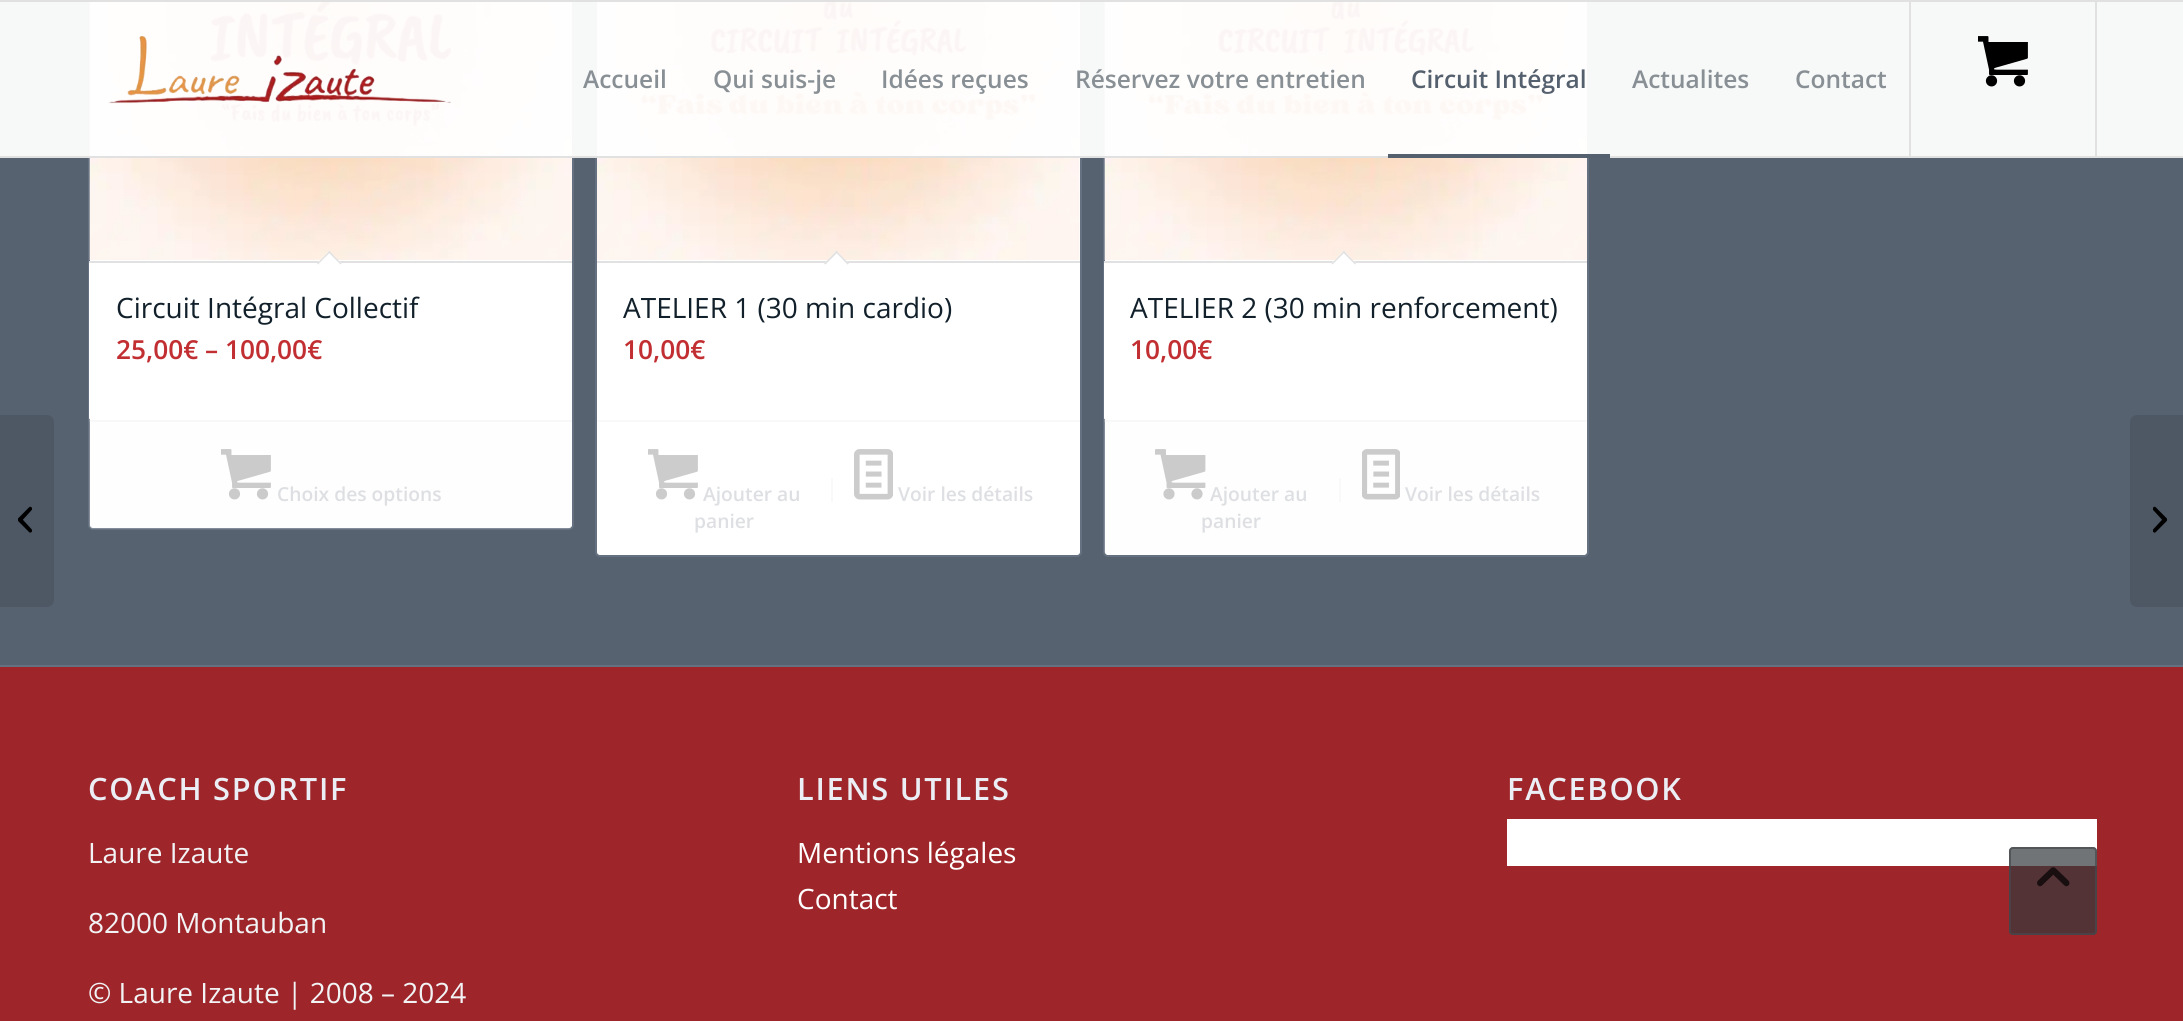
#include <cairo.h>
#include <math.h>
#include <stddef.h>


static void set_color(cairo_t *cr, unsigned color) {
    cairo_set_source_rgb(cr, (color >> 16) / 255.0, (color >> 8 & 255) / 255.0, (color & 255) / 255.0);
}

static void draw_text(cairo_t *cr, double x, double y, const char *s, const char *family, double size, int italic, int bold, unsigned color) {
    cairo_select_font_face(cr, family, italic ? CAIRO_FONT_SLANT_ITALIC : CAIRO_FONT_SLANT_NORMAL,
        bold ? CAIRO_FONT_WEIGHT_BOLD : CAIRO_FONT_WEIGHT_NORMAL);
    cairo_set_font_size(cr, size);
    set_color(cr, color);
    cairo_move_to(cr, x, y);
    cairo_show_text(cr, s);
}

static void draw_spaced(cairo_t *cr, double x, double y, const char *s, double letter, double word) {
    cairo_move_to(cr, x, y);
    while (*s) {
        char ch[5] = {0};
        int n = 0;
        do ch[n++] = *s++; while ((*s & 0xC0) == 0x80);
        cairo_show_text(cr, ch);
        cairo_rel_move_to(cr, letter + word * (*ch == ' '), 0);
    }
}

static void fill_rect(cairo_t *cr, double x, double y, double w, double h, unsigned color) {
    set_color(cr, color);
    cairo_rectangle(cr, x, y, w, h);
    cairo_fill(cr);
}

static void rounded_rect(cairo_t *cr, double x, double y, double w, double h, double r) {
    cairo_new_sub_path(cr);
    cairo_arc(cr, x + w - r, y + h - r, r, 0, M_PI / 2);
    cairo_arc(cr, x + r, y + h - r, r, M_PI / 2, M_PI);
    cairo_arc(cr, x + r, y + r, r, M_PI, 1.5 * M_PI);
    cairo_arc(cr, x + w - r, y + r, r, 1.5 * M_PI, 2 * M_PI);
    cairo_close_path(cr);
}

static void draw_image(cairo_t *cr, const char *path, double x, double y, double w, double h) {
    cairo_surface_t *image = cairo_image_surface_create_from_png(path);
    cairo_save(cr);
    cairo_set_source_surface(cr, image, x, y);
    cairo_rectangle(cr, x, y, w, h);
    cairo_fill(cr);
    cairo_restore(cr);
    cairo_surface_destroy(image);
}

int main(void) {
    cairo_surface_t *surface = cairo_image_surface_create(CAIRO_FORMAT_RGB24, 2183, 1021);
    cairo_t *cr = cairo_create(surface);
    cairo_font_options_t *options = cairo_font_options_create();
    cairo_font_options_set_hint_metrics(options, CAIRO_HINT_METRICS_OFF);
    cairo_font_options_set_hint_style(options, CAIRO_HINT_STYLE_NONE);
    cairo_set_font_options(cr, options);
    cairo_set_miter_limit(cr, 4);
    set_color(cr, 0x576270);
    cairo_paint(cr);
    set_color(cr, 0xFFFFFF);
    rounded_rect(cr, 89, -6, 484, 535, 4);
    cairo_fill_preserve(cr);
    set_color(cr, 0x657180);
    cairo_stroke(cr);
    draw_image(cr, "assets/img4.png", 89, 2, 483, 258);
    set_color(cr, 0xFFFFFF);
    rounded_rect(cr, 596, -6, 485, 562, 4);
    cairo_fill_preserve(cr);
    set_color(cr, 0x657180);
    cairo_stroke(cr);
    draw_image(cr, "assets/img6.png", 597, 2, 483, 258);
    set_color(cr, 0xFFFFFF);
    rounded_rect(cr, 1104, -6, 484, 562, 4);
    cairo_fill_preserve(cr);
    set_color(cr, 0x657180);
    cairo_stroke(cr);
    draw_image(cr, "assets/img8.png", 1104, 2, 483, 258);
    cairo_set_source_rgba(cr, 1, 1, 1, 0.95);
    cairo_rectangle(cr, 0, 2, 2183, 154);
    cairo_fill(cr);
    fill_rect(cr, 0, 0, 2183, 2, 0xE1E1E1);
    fill_rect(cr, 0, 156, 2183, 2, 0xE1E1E1);
    draw_image(cr, "assets/img1.png", 108, 36, 343, 68);
    draw_text(cr, 583, 88, "Accueil", "Open Sans SemiBold", 24.5, 0, 0, 0x889095);
    draw_text(cr, 713, 88, "Qui suis-je", "Open Sans SemiBold", 24.5, 0, 0, 0x889095);
    draw_text(cr, 881, 88, "Idées reçues", "Open Sans SemiBold", 24.5, 0, 0, 0x889095);
    draw_text(cr, 1075, 88, "Réservez votre entretien", "Open Sans SemiBold", 24.5, 0, 0, 0x889095);
    draw_text(cr, 1411, 88, "Circuit Intégral", "Open Sans SemiBold", 24.5, 0, 0, 0x55606E);
    fill_rect(cr, 1388, 154, 222, 4, 0x55606E);
    draw_text(cr, 1632, 88, "Actualites", "Open Sans SemiBold", 24.5, 0, 0, 0x889095);
    draw_text(cr, 1795, 88, "Contact", "Open Sans SemiBold", 24.5, 0, 0, 0x889095);
    fill_rect(cr, 2095, 2, 2, 154, 0xE1E1E1);
    fill_rect(cr, 1909, 2, 2, 154, 0xE1E1E1);
    draw_image(cr, "assets/img2.png", 1978, 36, 50, 51);
    set_color(cr, 0x4E5865);
    cairo_new_path(cr);
    cairo_move_to(cr, 0, 415);
    cairo_line_to(cr, 47, 415);
    cairo_curve_to(cr, 51, 415, 54, 418, 54, 422);
    cairo_line_to(cr, 54, 600);
    cairo_curve_to(cr, 54, 604, 51, 607, 47, 607);
    cairo_line_to(cr, 0, 607);
    cairo_close_path(cr);
    cairo_fill(cr);
    draw_image(cr, "assets/img3.png", 18, 506, 14, 27);
    set_color(cr, 0xFFFFFF);
    cairo_new_path(cr);
    cairo_move_to(cr, 89, 261);
    cairo_line_to(cr, 572, 261);
    cairo_line_to(cr, 572, 418);
    cairo_curve_to(cr, 572, 419, 571, 420, 570, 420);
    cairo_line_to(cr, 91, 420);
    cairo_curve_to(cr, 90, 420, 89, 419, 89, 418);
    cairo_close_path(cr);
    cairo_fill(cr);
    fill_rect(cr, 89, 261, 483, 2, 0xE1E1E1);
    set_color(cr, 0xFFFFFF);
    cairo_new_path(cr);
    cairo_move_to(cr, 329.5, 251);
    cairo_line_to(cr, 341.5, 263.5);
    cairo_line_to(cr, 329.5, 275.5);
    cairo_line_to(cr, 317, 263.5);
    cairo_close_path(cr);
    cairo_fill(cr);
    set_color(cr, 0xE1E1E1);
    cairo_new_path(cr);
    cairo_move_to(cr, 329.5, 251);
    cairo_line_to(cr, 341.5, 263.5);
    cairo_line_to(cr, 340.5, 264.5);
    cairo_line_to(cr, 328, 252);
    cairo_close_path(cr);
    cairo_fill(cr);
    cairo_new_path(cr);
    cairo_move_to(cr, 329.5, 251);
    cairo_line_to(cr, 330.5, 252);
    cairo_line_to(cr, 318, 264.5);
    cairo_line_to(cr, 317, 263.5);
    cairo_close_path(cr);
    cairo_fill(cr);
    draw_text(cr, 116, 318, "Circuit Intégral Collectif", "Open Sans", 28, 0, 0, 0x11202A);
    draw_text(cr, 116, 359, "25,00€ – 100,00€", "Open Sans SemiBold", 26.25, 0, 0, 0xC22F32);
    cairo_set_source_rgba(cr, 0.988, 0.988, 0.988, 0.2);
    cairo_new_path(cr);
    cairo_move_to(cr, 89, 420);
    cairo_line_to(cr, 572, 420);
    cairo_line_to(cr, 572, 525);
    cairo_curve_to(cr, 572, 527, 570, 529, 568, 529);
    cairo_line_to(cr, 93, 529);
    cairo_curve_to(cr, 91, 529, 89, 527, 89, 525);
    cairo_close_path(cr);
    cairo_fill(cr);
    cairo_set_source_rgba(cr, 0.882, 0.882, 0.882, 0.2);
    cairo_rectangle(cr, 89, 420, 483, 2);
    cairo_fill(cr);
    draw_image(cr, "assets/img5.png", 221, 449, 50, 51);
    draw_text(cr, 277, 501, "Choix des options", "Open Sans SemiBold", 19.25, 0, 0, 0xDDDFE2);
    fill_rect(cr, 597, 261, 483, 2, 0xE1E1E1);
    set_color(cr, 0xFFFFFF);
    cairo_new_path(cr);
    cairo_move_to(cr, 836.5, 251);
    cairo_line_to(cr, 849, 263.5);
    cairo_line_to(cr, 836.5, 275.5);
    cairo_line_to(cr, 824, 263.5);
    cairo_close_path(cr);
    cairo_fill(cr);
    set_color(cr, 0xE1E1E1);
    cairo_new_path(cr);
    cairo_move_to(cr, 836.5, 251);
    cairo_line_to(cr, 849, 263.5);
    cairo_line_to(cr, 847.5, 264.5);
    cairo_line_to(cr, 835.5, 252);
    cairo_close_path(cr);
    cairo_fill(cr);
    cairo_new_path(cr);
    cairo_move_to(cr, 836.5, 251);
    cairo_line_to(cr, 838, 252);
    cairo_line_to(cr, 825.5, 264.5);
    cairo_line_to(cr, 824, 263.5);
    cairo_close_path(cr);
    cairo_fill(cr);
    draw_text(cr, 623, 318, "ATELIER 1 (30 min cardio)", "Open Sans", 28, 0, 0, 0x11202A);
    draw_text(cr, 623, 359, "10,00€", "Open Sans SemiBold", 26.25, 0, 0, 0xC22F32);
    fill_rect(cr, 597, 420, 483, 2, 0xF9F9F9);
    draw_image(cr, "assets/img5.png", 648, 449, 50, 51);
    draw_text(cr, 703, 501, "Ajouter au", "Open Sans SemiBold", 19.25, 0, 0, 0xDDDFE2);
    draw_text(cr, 694, 528, "panier", "Open Sans SemiBold", 19.25, 0, 0, 0xDDDFE2);
    fill_rect(cr, 831, 478, 2, 24, 0xF9F9F9);
    draw_image(cr, "assets/img7.png", 854, 449, 39, 51);
    draw_text(cr, 898, 501, "Voir les détails", "Open Sans SemiBold", 19.25, 0, 0, 0xDDDFE2);
    set_color(cr, 0xFFFFFF);
    cairo_new_path(cr);
    cairo_move_to(cr, 1104, 261);
    cairo_line_to(cr, 1587, 261);
    cairo_line_to(cr, 1587, 418);
    cairo_curve_to(cr, 1587, 419, 1586, 420, 1585, 420);
    cairo_line_to(cr, 1106, 420);
    cairo_curve_to(cr, 1105, 420, 1104, 419, 1104, 418);
    cairo_close_path(cr);
    cairo_fill(cr);
    fill_rect(cr, 1104, 261, 483, 2, 0xE1E1E1);
    set_color(cr, 0xFFFFFF);
    cairo_new_path(cr);
    cairo_move_to(cr, 1344, 251);
    cairo_line_to(cr, 1356, 263.5);
    cairo_line_to(cr, 1344, 275.5);
    cairo_line_to(cr, 1331.5, 263.5);
    cairo_close_path(cr);
    cairo_fill(cr);
    set_color(cr, 0xE1E1E1);
    cairo_new_path(cr);
    cairo_move_to(cr, 1344, 251);
    cairo_line_to(cr, 1356, 263.5);
    cairo_line_to(cr, 1355, 264.5);
    cairo_line_to(cr, 1342.5, 252);
    cairo_close_path(cr);
    cairo_fill(cr);
    cairo_new_path(cr);
    cairo_move_to(cr, 1344, 251);
    cairo_line_to(cr, 1345, 252);
    cairo_line_to(cr, 1332.5, 264.5);
    cairo_line_to(cr, 1331.5, 263.5);
    cairo_close_path(cr);
    cairo_fill(cr);
    draw_text(cr, 1130, 318, "ATELIER 2 (30 min renforcement)", "Open Sans", 28, 0, 0, 0x11202A);
    draw_text(cr, 1130, 359, "10,00€", "Open Sans SemiBold", 26.25, 0, 0, 0xC22F32);
    cairo_set_source_rgba(cr, 0.988, 0.988, 0.988, 0.2);
    cairo_new_path(cr);
    cairo_move_to(cr, 1104, 420);
    cairo_line_to(cr, 1587, 420);
    cairo_line_to(cr, 1587, 551);
    cairo_curve_to(cr, 1587, 553, 1585, 555, 1583, 555);
    cairo_line_to(cr, 1108, 555);
    cairo_curve_to(cr, 1106, 555, 1104, 553, 1104, 551);
    cairo_close_path(cr);
    cairo_fill(cr);
    cairo_set_source_rgba(cr, 0.882, 0.882, 0.882, 0.2);
    cairo_rectangle(cr, 1104, 420, 483, 2);
    cairo_fill(cr);
    draw_image(cr, "assets/img9.png", 1155, 449, 51, 51);
    draw_text(cr, 1210, 501, "Ajouter au", "Open Sans SemiBold", 19.25, 0, 0, 0xDDDFE2);
    draw_text(cr, 1201, 528, "panier", "Open Sans SemiBold", 19.25, 0, 0, 0xDDDFE2);
    fill_rect(cr, 1339, 478, 2, 24, 0xF9F9F9);
    draw_image(cr, "assets/img10.png", 1362, 449, 38, 51);
    draw_text(cr, 1405, 501, "Voir les détails", "Open Sans SemiBold", 19.25, 0, 0, 0xDDDFE2);
    fill_rect(cr, 0, 667, 2183, 354, 0x9E262A);
    fill_rect(cr, 0, 665, 2183, 2, 0x657180);
    cairo_set_font_size(cr, 30.75);
    set_color(cr, 0xEBEFF5);
    draw_spaced(cr, 88, 800, "COACH SPORTIF", 1.75, 0);
    draw_text(cr, 88, 863, "Laure Izaute", "Open Sans", 28, 0, 0, 0xF2F3F5);
    draw_text(cr, 88, 933, "82000 Montauban", "Open Sans", 28, 0, 0, 0xF2F3F5);
    draw_text(cr, 88, 1003, "© Laure Izaute | 2008 – 2024", "Open Sans", 28, 0, 0, 0xF2F3F5);
    cairo_select_font_face(cr, "Open Sans SemiBold", CAIRO_FONT_SLANT_NORMAL, CAIRO_FONT_WEIGHT_NORMAL);
    cairo_set_font_size(cr, 30.75);
    set_color(cr, 0xEBEFF5);
    draw_spaced(cr, 797, 800, "LIENS UTILES", 1.75, 0);
    draw_text(cr, 797, 863, "Mentions légales", "Open Sans", 28, 0, 0, 0xFFFFFF);
    draw_text(cr, 797, 909, "Contact", "Open Sans", 28, 0, 0, 0xFFFFFF);
    cairo_select_font_face(cr, "Open Sans SemiBold", CAIRO_FONT_SLANT_NORMAL, CAIRO_FONT_WEIGHT_NORMAL);
    cairo_set_font_size(cr, 30.75);
    set_color(cr, 0xEBEFF5);
    draw_spaced(cr, 1507, 800, "FACEBOOK", 1.75, 0);
    fill_rect(cr, 1507, 819, 590, 47, 0xFFFFFF);
    set_color(cr, 0x4E5865);
    cairo_new_path(cr);
    cairo_move_to(cr, 2137, 415);
    cairo_line_to(cr, 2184, 415);
    cairo_line_to(cr, 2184, 607);
    cairo_line_to(cr, 2137, 607);
    cairo_curve_to(cr, 2133, 607, 2130, 604, 2130, 600);
    cairo_line_to(cr, 2130, 422);
    cairo_curve_to(cr, 2130, 418, 2133, 415, 2137, 415);
    cairo_close_path(cr);
    cairo_fill(cr);
    draw_image(cr, "assets/img11.png", 2153, 506, 14, 27);
    cairo_set_source_rgba(cr, 0.212, 0.224, 0.239, 0.7);
    rounded_rect(cr, 2009, 847, 88, 88, 4);
    cairo_fill(cr);
    rounded_rect(cr, 2010, 848, 86, 86, 3);
    cairo_set_source_rgba(cr, 0.271, 0.286, 0.302, 0.7);
    cairo_stroke(cr);
    draw_image(cr, "assets/img12.png", 2037, 867, 33, 20);
    cairo_surface_write_to_png(surface, "output.png");
    cairo_font_options_destroy(options);
    cairo_destroy(cr);
    cairo_surface_destroy(surface);
    return 0;
}
